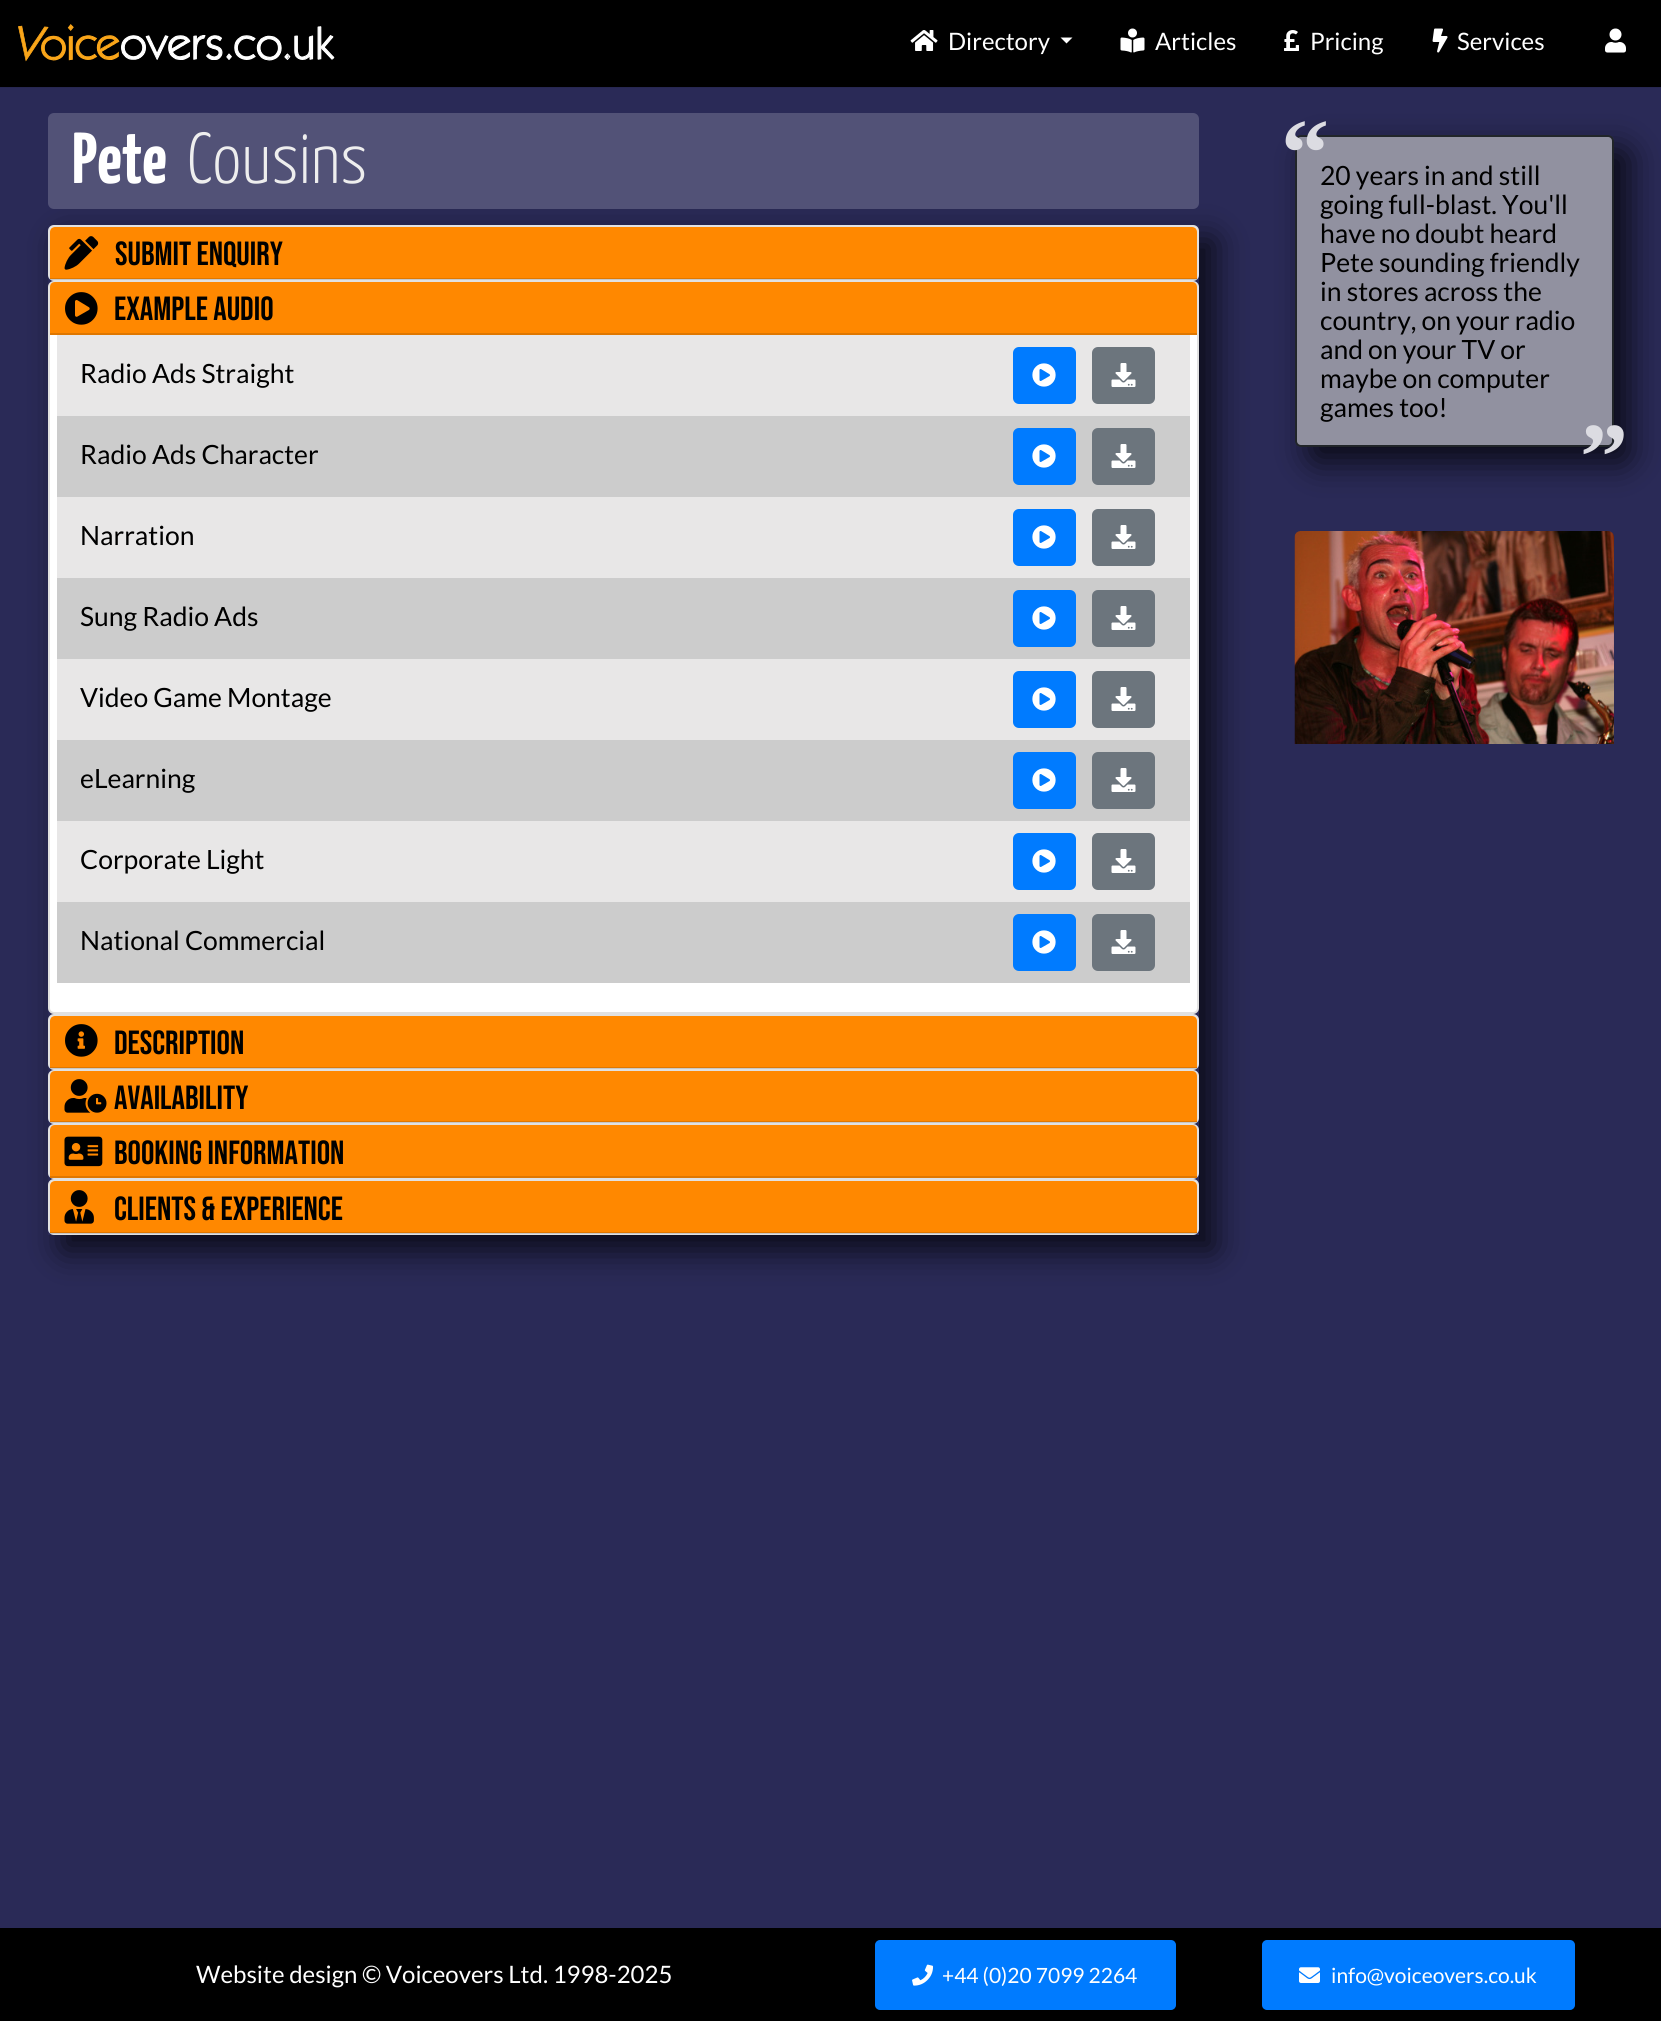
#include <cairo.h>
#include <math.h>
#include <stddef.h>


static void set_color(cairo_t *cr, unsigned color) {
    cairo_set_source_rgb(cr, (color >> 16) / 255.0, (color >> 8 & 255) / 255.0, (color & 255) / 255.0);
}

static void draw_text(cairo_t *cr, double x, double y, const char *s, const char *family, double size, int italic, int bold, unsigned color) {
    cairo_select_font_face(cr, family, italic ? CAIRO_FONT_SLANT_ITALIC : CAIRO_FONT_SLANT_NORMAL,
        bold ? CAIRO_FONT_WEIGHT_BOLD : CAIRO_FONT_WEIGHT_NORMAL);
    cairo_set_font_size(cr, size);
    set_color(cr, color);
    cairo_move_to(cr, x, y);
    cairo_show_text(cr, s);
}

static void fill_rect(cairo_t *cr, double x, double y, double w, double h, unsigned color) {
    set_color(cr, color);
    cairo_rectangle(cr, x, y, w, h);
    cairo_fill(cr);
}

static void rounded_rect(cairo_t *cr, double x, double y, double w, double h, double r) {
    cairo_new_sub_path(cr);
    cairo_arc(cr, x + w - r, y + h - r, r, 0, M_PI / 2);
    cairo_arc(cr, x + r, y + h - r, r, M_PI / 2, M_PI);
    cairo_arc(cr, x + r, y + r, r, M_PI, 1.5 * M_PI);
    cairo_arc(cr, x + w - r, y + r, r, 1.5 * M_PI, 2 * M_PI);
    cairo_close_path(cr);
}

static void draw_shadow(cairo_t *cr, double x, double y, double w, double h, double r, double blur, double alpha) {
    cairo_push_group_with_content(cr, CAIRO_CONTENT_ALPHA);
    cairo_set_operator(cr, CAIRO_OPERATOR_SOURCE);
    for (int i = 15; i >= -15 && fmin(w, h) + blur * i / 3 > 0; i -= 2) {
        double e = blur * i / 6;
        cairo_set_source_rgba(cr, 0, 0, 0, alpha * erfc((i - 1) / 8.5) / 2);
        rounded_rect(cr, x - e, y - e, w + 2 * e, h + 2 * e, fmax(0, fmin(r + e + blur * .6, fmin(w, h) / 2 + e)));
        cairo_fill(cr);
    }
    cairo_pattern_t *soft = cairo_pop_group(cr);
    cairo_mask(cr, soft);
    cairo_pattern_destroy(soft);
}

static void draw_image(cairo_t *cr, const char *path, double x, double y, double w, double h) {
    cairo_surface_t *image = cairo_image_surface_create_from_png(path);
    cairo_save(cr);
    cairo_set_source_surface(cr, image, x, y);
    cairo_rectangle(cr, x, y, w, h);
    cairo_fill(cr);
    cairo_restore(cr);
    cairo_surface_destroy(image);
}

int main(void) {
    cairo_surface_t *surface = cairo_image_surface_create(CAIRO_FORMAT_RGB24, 1661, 2021);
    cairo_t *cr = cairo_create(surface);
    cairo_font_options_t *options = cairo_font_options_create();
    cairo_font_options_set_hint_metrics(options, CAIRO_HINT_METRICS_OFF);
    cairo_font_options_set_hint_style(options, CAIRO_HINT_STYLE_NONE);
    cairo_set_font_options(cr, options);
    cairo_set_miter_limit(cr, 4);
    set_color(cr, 0x2A2A57);
    cairo_paint(cr);
    fill_rect(cr, 0, 87, 1661, 1, 0x272751);
    fill_rect(cr, 0, 0, 1661, 87, 0x000000);
    draw_image(cr, "assets/img1.png", 18, 24, 317, 38);
    draw_image(cr, "assets/img2.png", 910, 30, 28, 21);
    draw_text(cr, 948, 50, "Directory", "Lato", 24, 0, 0, 0xFFFFFF);
    cairo_new_path(cr);
    cairo_move_to(cr, 1060.5, 37.5);
    cairo_line_to(cr, 1072.5, 37.5);
    cairo_line_to(cr, 1066.5, 43.5);
    cairo_close_path(cr);
    cairo_fill(cr);
    draw_image(cr, "assets/img3.png", 1120, 28, 25, 25);
    draw_text(cr, 1155, 50, "Articles", "Lato", 24, 0, 0, 0xFFFFFF);
    draw_image(cr, "assets/img4.png", 1284, 30, 15, 21);
    draw_text(cr, 1310, 50, "Pricing", "Lato", 24, 0, 0, 0xFFFFFF);
    draw_image(cr, "assets/img5.png", 1432, 28, 16, 25);
    draw_text(cr, 1457, 50, "Services", "Lato", 24, 0, 0, 0xFFFFFF);
    draw_image(cr, "assets/img6.png", 1605, 28, 21, 25);
    cairo_save(cr);
    cairo_set_fill_rule(cr, CAIRO_FILL_RULE_EVEN_ODD);
    cairo_new_path(cr);
    cairo_move_to(cr, 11, 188);
    cairo_line_to(cr, 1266, 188);
    cairo_line_to(cr, 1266, 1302);
    cairo_line_to(cr, 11, 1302);
    cairo_close_path(cr);
    cairo_move_to(cr, 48, 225);
    cairo_line_to(cr, 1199, 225);
    cairo_line_to(cr, 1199, 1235);
    cairo_line_to(cr, 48, 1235);
    cairo_close_path(cr);
    cairo_clip(cr);
    set_color(cr, 0x000000);
    draw_shadow(cr, 63, 240, 1151, 1010, 0, 17, 0.75);
    cairo_restore(cr);
    set_color(cr, 0x525277);
    rounded_rect(cr, 48, 113, 1151, 96, 6);
    cairo_fill(cr);
    draw_text(cr, 72, 183, "Pete", "Yanone Kaffeesatz", 72, 0, 1, 0xFFFFFF);
    draw_text(cr, 187, 183, "Cousins", "Yanone Kaffeesatz Light", 72, 0, 0, 0xEEEEEE);
    set_color(cr, 0xFFFFFF);
    rounded_rect(cr, 48, 225, 1151, 56, 6);
    cairo_fill(cr);
    rounded_rect(cr, 49, 226, 1149, 54, 5);
    cairo_set_source_rgba(cr, 0, 0, 0, 0.12);
    cairo_stroke(cr);
    set_color(cr, 0xFF8800);
    cairo_new_path(cr);
    cairo_move_to(cr, 55, 227);
    cairo_line_to(cr, 1192, 227);
    cairo_curve_to(cr, 1195, 227, 1197, 229, 1197, 232);
    cairo_line_to(cr, 1197, 279);
    cairo_line_to(cr, 50, 279);
    cairo_line_to(cr, 50, 232);
    cairo_curve_to(cr, 50, 229, 52, 227, 55, 227);
    cairo_close_path(cr);
    cairo_fill(cr);
    cairo_set_source_rgba(cr, 0, 0, 0, 0.12);
    cairo_rectangle(cr, 50, 278, 1147, 2);
    cairo_fill(cr);
    draw_image(cr, "assets/img7.png", 64, 236, 35, 34);
    draw_text(cr, 115, 265, "Submit Enquiry", "Bebas Neue", 33.5, 0, 0, 0x000000);
    set_color(cr, 0xFFFFFF);
    rounded_rect(cr, 48, 281, 1151, 733, 6);
    cairo_fill(cr);
    rounded_rect(cr, 49, 282, 1149, 731, 5);
    cairo_set_source_rgba(cr, 0, 0, 0, 0.12);
    cairo_stroke(cr);
    set_color(cr, 0xFF8800);
    cairo_new_path(cr);
    cairo_move_to(cr, 55, 282);
    cairo_line_to(cr, 1192, 282);
    cairo_curve_to(cr, 1195, 282, 1197, 284, 1197, 287);
    cairo_line_to(cr, 1197, 335);
    cairo_line_to(cr, 50, 335);
    cairo_line_to(cr, 50, 287);
    cairo_curve_to(cr, 50, 284, 52, 282, 55, 282);
    cairo_close_path(cr);
    cairo_fill(cr);
    fill_rect(cr, 50, 333, 1147, 2, 0xDF7700);
    draw_image(cr, "assets/img8.png", 65, 292, 33, 33);
    draw_text(cr, 114, 320, "Example Audio", "Bebas Neue", 33.5, 0, 0, 0x000000);
    fill_rect(cr, 57, 335, 1133, 81, 0xE8E7E7);
    draw_text(cr, 80, 383, "Radio Ads Straight", "Lato", 26.5, 0, 0, 0x000000);
    set_color(cr, 0x007BFF);
    rounded_rect(cr, 1014, 348, 61, 55, 5);
    cairo_fill_preserve(cr);
    cairo_stroke(cr);
    draw_image(cr, "assets/img9.png", 1032, 363, 24, 24);
    set_color(cr, 0x6C757D);
    rounded_rect(cr, 1093, 348, 61, 55, 5);
    cairo_fill_preserve(cr);
    cairo_stroke(cr);
    draw_image(cr, "assets/img10.png", 1111, 363, 25, 24);
    fill_rect(cr, 57, 416, 1133, 81, 0xCCCCCC);
    draw_text(cr, 80, 464, "Radio Ads Character", "Lato", 26.5, 0, 0, 0x000000);
    set_color(cr, 0x007BFF);
    rounded_rect(cr, 1014, 429, 61, 55, 5);
    cairo_fill_preserve(cr);
    cairo_stroke(cr);
    draw_image(cr, "assets/img9.png", 1032, 444, 24, 24);
    set_color(cr, 0x6C757D);
    rounded_rect(cr, 1093, 429, 61, 55, 5);
    cairo_fill_preserve(cr);
    cairo_stroke(cr);
    draw_image(cr, "assets/img10.png", 1111, 444, 25, 24);
    fill_rect(cr, 57, 497, 1133, 81, 0xE8E7E7);
    draw_text(cr, 80, 545, "Narration", "Lato", 26.5, 0, 0, 0x000000);
    set_color(cr, 0x007BFF);
    rounded_rect(cr, 1014, 510, 61, 55, 5);
    cairo_fill_preserve(cr);
    cairo_stroke(cr);
    draw_image(cr, "assets/img9.png", 1032, 525, 24, 24);
    set_color(cr, 0x6C757D);
    rounded_rect(cr, 1093, 510, 61, 55, 5);
    cairo_fill_preserve(cr);
    cairo_stroke(cr);
    draw_image(cr, "assets/img10.png", 1111, 525, 25, 24);
    fill_rect(cr, 57, 578, 1133, 81, 0xCCCCCC);
    draw_text(cr, 80, 626, "Sung Radio Ads", "Lato", 26.5, 0, 0, 0x000000);
    set_color(cr, 0x007BFF);
    rounded_rect(cr, 1014, 591, 61, 55, 5);
    cairo_fill_preserve(cr);
    cairo_stroke(cr);
    draw_image(cr, "assets/img9.png", 1032, 606, 24, 24);
    set_color(cr, 0x6C757D);
    rounded_rect(cr, 1093, 591, 61, 55, 5);
    cairo_fill_preserve(cr);
    cairo_stroke(cr);
    draw_image(cr, "assets/img10.png", 1111, 606, 25, 24);
    fill_rect(cr, 57, 659, 1133, 81, 0xE8E7E7);
    draw_text(cr, 80, 707, "Video Game Montage", "Lato", 26.5, 0, 0, 0x000000);
    set_color(cr, 0x007BFF);
    rounded_rect(cr, 1014, 672, 61, 55, 5);
    cairo_fill_preserve(cr);
    cairo_stroke(cr);
    draw_image(cr, "assets/img9.png", 1032, 687, 24, 24);
    set_color(cr, 0x6C757D);
    rounded_rect(cr, 1093, 672, 61, 55, 5);
    cairo_fill_preserve(cr);
    cairo_stroke(cr);
    draw_image(cr, "assets/img10.png", 1111, 687, 25, 24);
    fill_rect(cr, 57, 740, 1133, 81, 0xCCCCCC);
    draw_text(cr, 80, 788, "eLearning", "Lato", 26.5, 0, 0, 0x000000);
    set_color(cr, 0x007BFF);
    rounded_rect(cr, 1014, 753, 61, 55, 5);
    cairo_fill_preserve(cr);
    cairo_stroke(cr);
    draw_image(cr, "assets/img9.png", 1032, 768, 24, 24);
    set_color(cr, 0x6C757D);
    rounded_rect(cr, 1093, 753, 61, 55, 5);
    cairo_fill_preserve(cr);
    cairo_stroke(cr);
    draw_image(cr, "assets/img10.png", 1111, 768, 25, 24);
    fill_rect(cr, 57, 821, 1133, 81, 0xE8E7E7);
    draw_text(cr, 80, 869, "Corporate Light", "Lato", 26.5, 0, 0, 0x000000);
    set_color(cr, 0x007BFF);
    rounded_rect(cr, 1014, 834, 61, 55, 5);
    cairo_fill_preserve(cr);
    cairo_stroke(cr);
    draw_image(cr, "assets/img9.png", 1032, 849, 24, 24);
    set_color(cr, 0x6C757D);
    rounded_rect(cr, 1093, 834, 61, 55, 5);
    cairo_fill_preserve(cr);
    cairo_stroke(cr);
    draw_image(cr, "assets/img10.png", 1111, 849, 25, 24);
    fill_rect(cr, 57, 902, 1133, 81, 0xCCCCCC);
    draw_text(cr, 80, 950, "National Commercial", "Lato", 26.5, 0, 0, 0x000000);
    set_color(cr, 0x007BFF);
    rounded_rect(cr, 1014, 915, 61, 55, 5);
    cairo_fill_preserve(cr);
    cairo_stroke(cr);
    draw_image(cr, "assets/img9.png", 1032, 930, 24, 24);
    set_color(cr, 0x6C757D);
    rounded_rect(cr, 1093, 915, 61, 55, 5);
    cairo_fill_preserve(cr);
    cairo_stroke(cr);
    draw_image(cr, "assets/img10.png", 1111, 930, 25, 24);
    set_color(cr, 0xFFFFFF);
    rounded_rect(cr, 48, 1014, 1151, 56, 6);
    cairo_fill(cr);
    rounded_rect(cr, 49, 1015, 1149, 54, 5);
    cairo_set_source_rgba(cr, 0, 0, 0, 0.12);
    cairo_stroke(cr);
    set_color(cr, 0xFF8800);
    cairo_new_path(cr);
    cairo_move_to(cr, 55, 1016);
    cairo_line_to(cr, 1192, 1016);
    cairo_curve_to(cr, 1195, 1016, 1197, 1018, 1197, 1021);
    cairo_line_to(cr, 1197, 1068);
    cairo_line_to(cr, 50, 1068);
    cairo_line_to(cr, 50, 1021);
    cairo_curve_to(cr, 50, 1018, 52, 1016, 55, 1016);
    cairo_close_path(cr);
    cairo_fill(cr);
    cairo_set_source_rgba(cr, 0, 0, 0, 0.12);
    cairo_rectangle(cr, 50, 1067, 1147, 2);
    cairo_fill(cr);
    draw_image(cr, "assets/img11.png", 65, 1024, 33, 33);
    draw_text(cr, 114, 1054, "Description", "Bebas Neue", 33.5, 0, 0, 0x000000);
    set_color(cr, 0xFFFFFF);
    rounded_rect(cr, 48, 1070, 1151, 54, 6);
    cairo_fill(cr);
    rounded_rect(cr, 49, 1071, 1149, 52, 5);
    cairo_set_source_rgba(cr, 0, 0, 0, 0.12);
    cairo_stroke(cr);
    set_color(cr, 0xFF8800);
    cairo_new_path(cr);
    cairo_move_to(cr, 55, 1071);
    cairo_line_to(cr, 1192, 1071);
    cairo_curve_to(cr, 1195, 1071, 1197, 1073, 1197, 1076);
    cairo_line_to(cr, 1197, 1122);
    cairo_line_to(cr, 50, 1122);
    cairo_line_to(cr, 50, 1076);
    cairo_curve_to(cr, 50, 1073, 52, 1071, 55, 1071);
    cairo_close_path(cr);
    cairo_fill(cr);
    cairo_set_source_rgba(cr, 0, 0, 0, 0.12);
    cairo_rectangle(cr, 50, 1121, 1147, 2);
    cairo_fill(cr);
    draw_image(cr, "assets/img12.png", 64, 1079, 43, 34);
    draw_text(cr, 114, 1109, "Availability", "Bebas Neue", 33.5, 0, 0, 0x000000);
    set_color(cr, 0xFFFFFF);
    rounded_rect(cr, 48, 1124, 1151, 55, 6);
    cairo_fill(cr);
    rounded_rect(cr, 49, 1125, 1149, 53, 5);
    cairo_set_source_rgba(cr, 0, 0, 0, 0.12);
    cairo_stroke(cr);
    set_color(cr, 0xFF8800);
    cairo_new_path(cr);
    cairo_move_to(cr, 55, 1125);
    cairo_line_to(cr, 1192, 1125);
    cairo_curve_to(cr, 1195, 1125, 1197, 1127, 1197, 1130);
    cairo_line_to(cr, 1197, 1178);
    cairo_line_to(cr, 50, 1178);
    cairo_line_to(cr, 50, 1130);
    cairo_curve_to(cr, 50, 1127, 52, 1125, 55, 1125);
    cairo_close_path(cr);
    cairo_fill(cr);
    fill_rect(cr, 50, 1176, 1147, 2, 0xDF7700);
    draw_image(cr, "assets/img13.png", 64, 1136, 39, 31);
    draw_text(cr, 114, 1164, "Booking Information", "Bebas Neue", 33.5, 0, 0, 0x000000);
    set_color(cr, 0xFFFFFF);
    rounded_rect(cr, 48, 1179, 1151, 56, 6);
    cairo_fill(cr);
    rounded_rect(cr, 49, 1180, 1149, 54, 5);
    cairo_set_source_rgba(cr, 0, 0, 0, 0.12);
    cairo_stroke(cr);
    set_color(cr, 0xFF8800);
    cairo_new_path(cr);
    cairo_move_to(cr, 55, 1181);
    cairo_line_to(cr, 1192, 1181);
    cairo_curve_to(cr, 1195, 1181, 1197, 1183, 1197, 1186);
    cairo_line_to(cr, 1197, 1233);
    cairo_line_to(cr, 50, 1233);
    cairo_line_to(cr, 50, 1186);
    cairo_curve_to(cr, 50, 1183, 52, 1181, 55, 1181);
    cairo_close_path(cr);
    cairo_fill(cr);
    cairo_set_source_rgba(cr, 0, 0, 0, 0.12);
    cairo_rectangle(cr, 50, 1232, 1147, 2);
    cairo_fill(cr);
    draw_image(cr, "assets/img14.png", 64, 1190, 30, 34);
    draw_text(cr, 114, 1220, "Clients & Experience", "Bebas Neue", 33.5, 0, 0, 0x000000);
    cairo_save(cr);
    cairo_set_fill_rule(cr, CAIRO_FILL_RULE_EVEN_ODD);
    cairo_new_path(cr);
    cairo_move_to(cr, 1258, 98);
    cairo_line_to(cr, 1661, 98);
    cairo_line_to(cr, 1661, 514);
    cairo_line_to(cr, 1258, 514);
    cairo_close_path(cr);
    cairo_move_to(cr, 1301, 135);
    cairo_line_to(cr, 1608, 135);
    cairo_curve_to(cr, 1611.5, 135, 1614, 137.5, 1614, 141);
    cairo_line_to(cr, 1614, 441);
    cairo_curve_to(cr, 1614, 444.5, 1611.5, 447, 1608, 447);
    cairo_line_to(cr, 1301, 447);
    cairo_curve_to(cr, 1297.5, 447, 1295, 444.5, 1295, 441);
    cairo_line_to(cr, 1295, 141);
    cairo_curve_to(cr, 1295, 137.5, 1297.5, 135, 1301, 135);
    cairo_close_path(cr);
    cairo_clip(cr);
    set_color(cr, 0x000000);
    draw_shadow(cr, 1310, 150, 319, 312, 6, 17, 0.75);
    cairo_restore(cr);
    cairo_set_source_rgba(cr, 0.784, 0.784, 0.784, 0.65);
    rounded_rect(cr, 1296, 136, 317, 310, 5);
    cairo_fill_preserve(cr);
    set_color(cr, 0x212529);
    cairo_stroke(cr);
    draw_text(cr, 1281, 185, "“", "Liberation Serif", 96, 0, 1, 0xDCDCE2);
    draw_text(cr, 1320, 185, "20 years in and still", "Lato", 26.5, 0, 0, 0x000000);
    draw_text(cr, 1320, 214, "going full-blast. You'll", "Lato", 26.5, 0, 0, 0x000000);
    draw_text(cr, 1320, 243, "have no doubt heard", "Lato", 26.5, 0, 0, 0x000000);
    draw_text(cr, 1320, 272, "Pete sounding friendly", "Lato", 26.5, 0, 0, 0x000000);
    draw_text(cr, 1320, 301, "in stores across the", "Lato", 26.5, 0, 0, 0x000000);
    draw_text(cr, 1320, 330, "country, on your radio", "Lato", 26.5, 0, 0, 0x000000);
    draw_text(cr, 1320, 359, "and on your TV or", "Lato", 26.5, 0, 0, 0x000000);
    draw_text(cr, 1320, 388, "maybe on computer", "Lato", 26.5, 0, 0, 0x000000);
    draw_text(cr, 1320, 417, "games too!", "Lato", 26.5, 0, 0, 0x000000);
    draw_text(cr, 1580, 489, "”", "Liberation Serif", 96, 0, 1, 0xDCDCE2);
    draw_image(cr, "assets/img15.png", 1294, 531, 320, 213);
    fill_rect(cr, 0, 1928, 1661, 93, 0x000000);
    draw_text(cr, 196, 1983, "Website design © Voiceovers Ltd. 1998-2025", "Lato", 24, 0, 0, 0xFFFFFF);
    set_color(cr, 0x007BFF);
    rounded_rect(cr, 876, 1941, 299, 68, 4);
    cairo_fill_preserve(cr);
    cairo_stroke(cr);
    draw_image(cr, "assets/img16.png", 912, 1964, 21, 22);
    draw_text(cr, 942, 1983, "+44 (0)20 7099 2264", "Lato", 21, 0, 0, 0xFFFFFF);
    set_color(cr, 0x007BFF);
    rounded_rect(cr, 1263, 1941, 311, 68, 4);
    cairo_fill_preserve(cr);
    cairo_stroke(cr);
    draw_image(cr, "assets/img17.png", 1299, 1967, 21, 16);
    draw_text(cr, 1331, 1983, "info@voiceovers.co.uk", "Lato", 21, 0, 0, 0xFFFFFF);
    cairo_surface_write_to_png(surface, "output.png");
    cairo_font_options_destroy(options);
    cairo_destroy(cr);
    cairo_surface_destroy(surface);
    return 0;
}
